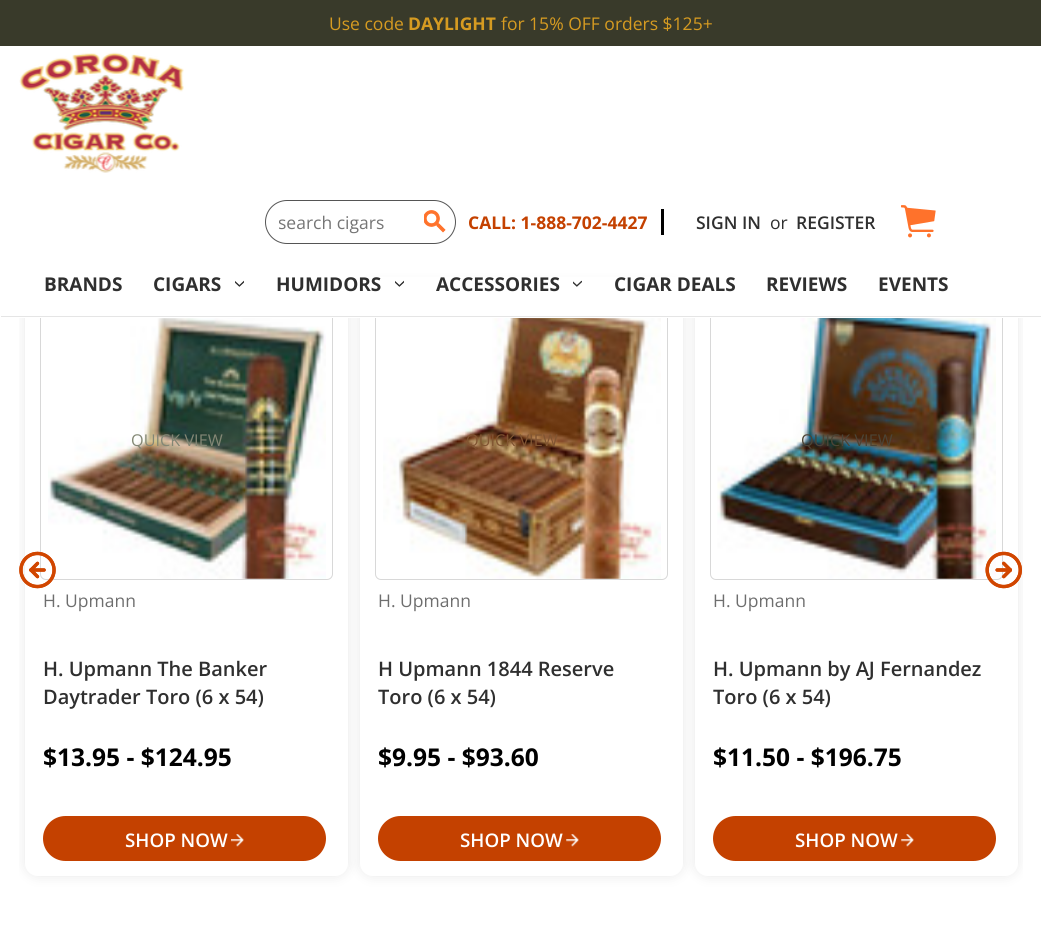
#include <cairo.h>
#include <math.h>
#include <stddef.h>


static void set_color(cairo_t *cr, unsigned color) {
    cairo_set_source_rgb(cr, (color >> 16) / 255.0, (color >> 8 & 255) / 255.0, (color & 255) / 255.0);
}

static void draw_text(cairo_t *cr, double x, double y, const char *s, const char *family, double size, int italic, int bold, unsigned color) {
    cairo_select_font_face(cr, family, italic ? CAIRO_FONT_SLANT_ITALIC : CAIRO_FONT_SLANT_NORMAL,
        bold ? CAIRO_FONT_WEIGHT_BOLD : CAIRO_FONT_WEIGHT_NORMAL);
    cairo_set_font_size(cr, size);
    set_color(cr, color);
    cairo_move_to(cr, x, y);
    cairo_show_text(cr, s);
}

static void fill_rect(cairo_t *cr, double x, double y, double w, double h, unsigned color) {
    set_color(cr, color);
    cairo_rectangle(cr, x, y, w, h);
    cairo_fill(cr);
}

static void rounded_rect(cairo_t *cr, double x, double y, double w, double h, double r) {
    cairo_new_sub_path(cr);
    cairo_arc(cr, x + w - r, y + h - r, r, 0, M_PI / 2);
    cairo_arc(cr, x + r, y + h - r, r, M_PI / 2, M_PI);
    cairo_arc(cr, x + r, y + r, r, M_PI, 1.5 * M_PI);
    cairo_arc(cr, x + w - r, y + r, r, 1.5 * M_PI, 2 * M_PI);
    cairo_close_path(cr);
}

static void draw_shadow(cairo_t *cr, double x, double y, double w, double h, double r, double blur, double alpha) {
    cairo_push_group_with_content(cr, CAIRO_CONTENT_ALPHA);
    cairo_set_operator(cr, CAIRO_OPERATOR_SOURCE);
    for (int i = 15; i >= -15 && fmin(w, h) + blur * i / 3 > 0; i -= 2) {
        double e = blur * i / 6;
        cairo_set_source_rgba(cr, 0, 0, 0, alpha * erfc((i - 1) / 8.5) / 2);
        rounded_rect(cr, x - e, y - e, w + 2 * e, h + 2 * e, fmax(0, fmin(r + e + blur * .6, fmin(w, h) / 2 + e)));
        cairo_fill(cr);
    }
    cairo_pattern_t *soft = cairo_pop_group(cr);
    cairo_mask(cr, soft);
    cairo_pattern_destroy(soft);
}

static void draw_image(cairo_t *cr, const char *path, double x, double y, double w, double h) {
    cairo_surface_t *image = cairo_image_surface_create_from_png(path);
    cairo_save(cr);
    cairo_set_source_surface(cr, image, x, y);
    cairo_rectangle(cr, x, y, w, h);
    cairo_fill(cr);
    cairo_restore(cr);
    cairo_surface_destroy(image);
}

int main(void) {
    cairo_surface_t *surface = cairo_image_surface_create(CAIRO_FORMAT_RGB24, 1041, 929);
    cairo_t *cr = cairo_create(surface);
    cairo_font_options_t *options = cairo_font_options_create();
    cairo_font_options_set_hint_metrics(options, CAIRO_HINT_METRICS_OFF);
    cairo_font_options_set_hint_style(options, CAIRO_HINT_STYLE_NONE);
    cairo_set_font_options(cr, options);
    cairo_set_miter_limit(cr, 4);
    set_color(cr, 0xFFFFFF);
    cairo_paint(cr);
    fill_rect(cr, 0, 0, 1041, 46, 0x393A2A);
    draw_text(cr, 329, 30, "Use code", "Open Sans", 17.5, 0, 0, 0xD69B21);
    draw_text(cr, 408, 30, "DAYLIGHT", "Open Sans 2", 17.5, 0, 1, 0xD69B21);
    draw_text(cr, 501, 30, "for 15% OFF orders $125+", "Open Sans", 17.5, 0, 0, 0xD69B21);
    cairo_save(cr);
    cairo_rectangle(cr, 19, 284, 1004, 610);
    cairo_clip(cr);
    cairo_set_fill_rule(cr, CAIRO_FILL_RULE_EVEN_ODD);
    cairo_new_path(cr);
    cairo_move_to(cr, 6, 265);
    cairo_line_to(cr, 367, 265);
    cairo_line_to(cr, 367, 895);
    cairo_line_to(cr, 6, 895);
    cairo_close_path(cr);
    cairo_move_to(cr, 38, 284);
    cairo_line_to(cr, 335, 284);
    cairo_curve_to(cr, 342, 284, 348, 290, 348, 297);
    cairo_line_to(cr, 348, 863);
    cairo_curve_to(cr, 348, 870, 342, 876, 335, 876);
    cairo_line_to(cr, 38, 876);
    cairo_curve_to(cr, 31, 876, 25, 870, 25, 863);
    cairo_line_to(cr, 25, 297);
    cairo_curve_to(cr, 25, 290, 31, 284, 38, 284);
    cairo_close_path(cr);
    cairo_clip(cr);
    set_color(cr, 0xE8E8E8);
    draw_shadow(cr, 25, 284, 323, 592, 13, 6, 1);
    cairo_restore(cr);
    rounded_rect(cr, 40.5, 299.5, 292, 280, 5.5);
    set_color(cr, 0xD8D8D8);
    cairo_set_line_width(cr, 1);
    cairo_stroke(cr);
    cairo_save(cr);
    cairo_set_fill_rule(cr, CAIRO_FILL_RULE_EVEN_ODD);
    cairo_new_path(cr);
    cairo_move_to(cr, 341, 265);
    cairo_line_to(cr, 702, 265);
    cairo_line_to(cr, 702, 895);
    cairo_line_to(cr, 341, 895);
    cairo_close_path(cr);
    cairo_move_to(cr, 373, 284);
    cairo_line_to(cr, 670, 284);
    cairo_curve_to(cr, 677, 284, 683, 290, 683, 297);
    cairo_line_to(cr, 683, 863);
    cairo_curve_to(cr, 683, 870, 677, 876, 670, 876);
    cairo_line_to(cr, 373, 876);
    cairo_curve_to(cr, 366, 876, 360, 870, 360, 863);
    cairo_line_to(cr, 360, 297);
    cairo_curve_to(cr, 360, 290, 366, 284, 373, 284);
    cairo_close_path(cr);
    cairo_clip(cr);
    set_color(cr, 0xE8E8E8);
    draw_shadow(cr, 360, 284, 323, 592, 13, 6, 1);
    cairo_restore(cr);
    rounded_rect(cr, 375.5, 299.5, 292, 280, 5.5);
    cairo_stroke(cr);
    cairo_save(cr);
    cairo_rectangle(cr, 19, 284, 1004, 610);
    cairo_clip(cr);
    cairo_set_fill_rule(cr, CAIRO_FILL_RULE_EVEN_ODD);
    cairo_new_path(cr);
    cairo_move_to(cr, 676, 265);
    cairo_line_to(cr, 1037, 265);
    cairo_line_to(cr, 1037, 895);
    cairo_line_to(cr, 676, 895);
    cairo_close_path(cr);
    cairo_move_to(cr, 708, 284);
    cairo_line_to(cr, 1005, 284);
    cairo_curve_to(cr, 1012, 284, 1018, 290, 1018, 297);
    cairo_line_to(cr, 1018, 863);
    cairo_curve_to(cr, 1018, 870, 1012, 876, 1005, 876);
    cairo_line_to(cr, 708, 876);
    cairo_curve_to(cr, 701, 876, 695, 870, 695, 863);
    cairo_line_to(cr, 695, 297);
    cairo_curve_to(cr, 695, 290, 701, 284, 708, 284);
    cairo_close_path(cr);
    cairo_clip(cr);
    set_color(cr, 0xE8E8E8);
    draw_shadow(cr, 695, 284, 323, 592, 13, 6, 1);
    cairo_restore(cr);
    rounded_rect(cr, 710.5, 299.5, 292, 280, 5.5);
    cairo_stroke(cr);
    fill_rect(cr, 19, 277, 1004, 41, 0xFFFFFF);
    fill_rect(cr, 1, 316, 1040, 1, 0xE5E5E5);
    draw_image(cr, "assets/img1.png", 19, 52, 165, 121);
    rounded_rect(cr, 265.5, 200.5, 190, 43, 21.5);
    set_color(cr, 0x555555);
    cairo_stroke(cr);
    cairo_save(cr);
    cairo_rectangle(cr, 279, 210, 174, 24);
    cairo_clip(cr);
    draw_text(cr, 278, 229, "search cigars", "Open Sans", 17.5, 0, 0, 0x757575);
    cairo_restore(cr);
    draw_image(cr, "assets/img2.png", 424, 210, 22, 23);
    draw_text(cr, 468, 229, "CALL: 1-888-702-4427", "Open Sans 2", 17.5, 0, 1, 0xC44100);
    fill_rect(cr, 661, 209, 3, 26, 0x000000);
    draw_text(cr, 696, 229, "SIGN IN", "Open Sans SemiBold", 17.5, 0, 0, 0x2F2F2F);
    draw_text(cr, 770, 229, "or", "Open Sans", 17.5, 0, 0, 0x2F2F2F);
    draw_text(cr, 796, 229, "REGISTER", "Open Sans SemiBold", 17.5, 0, 0, 0x2F2F2F);
    draw_image(cr, "assets/img3.png", 901, 205, 35, 33);
    draw_text(cr, 44, 291, "BRANDS", "Open Sans 2", 19, 0, 1, 0x2F2F2F);
    draw_text(cr, 153, 291, "CIGARS", "Open Sans 2", 19, 0, 1, 0x2F2F2F);
    draw_image(cr, "assets/img4.png", 235, 280, 9, 7);
    draw_text(cr, 276, 291, "HUMIDORS", "Open Sans 2", 19, 0, 1, 0x2F2F2F);
    draw_image(cr, "assets/img4.png", 395, 280, 9, 7);
    draw_text(cr, 436, 291, "ACCESSORIES", "Open Sans 2", 19, 0, 1, 0x2F2F2F);
    draw_image(cr, "assets/img5.png", 573, 280, 9, 7);
    draw_text(cr, 614, 291, "CIGAR DEALS", "Open Sans 2", 19, 0, 1, 0x2F2F2F);
    draw_text(cr, 766, 291, "REVIEWS", "Open Sans 2", 19, 0, 1, 0x2F2F2F);
    draw_text(cr, 878, 291, "EVENTS", "Open Sans 2", 19, 0, 1, 0x2F2F2F);
    draw_image(cr, "assets/img7.png", 48, 318, 278, 261);
    draw_image(cr, "assets/img6.png", 19, 551, 37, 38);
    draw_text(cr, 131, 446, "QUICK VIEW", "Open Sans", 16.25, 0, 0, 0x838775);
    draw_text(cr, 43, 607, "H. Upmann", "Open Sans", 17.5, 0, 0, 0x6E6E6E);
    draw_text(cr, 43, 676, "H. Upmann The Banker", "Open Sans SemiBold", 20, 0, 0, 0x2F2F2F);
    draw_text(cr, 43, 704, "Daytrader Toro (6 x 54)", "Open Sans SemiBold", 20, 0, 0, 0x2F2F2F);
    draw_text(cr, 43, 766, "$13.95 - $124.95", "Open Sans", 24.5, 0, 1, 0x000000);
    set_color(cr, 0xC44100);
    rounded_rect(cr, 43, 816, 283, 45, 22.5);
    cairo_fill(cr);
    draw_text(cr, 125, 847, "SHOP NOW", "Open Sans SemiBold", 18.75, 0, 0, 0xFFFFFF);
    draw_image(cr, "assets/img8.png", 231, 834, 13, 13);
    draw_image(cr, "assets/img9.png", 383, 318, 278, 261);
    draw_text(cr, 466, 446, "QUICK VIEW", "Open Sans", 16.25, 0, 0, 0x815532);
    draw_text(cr, 378, 607, "H. Upmann", "Open Sans", 17.5, 0, 0, 0x6E6E6E);
    draw_text(cr, 378, 676, "H Upmann 1844 Reserve", "Open Sans SemiBold", 20, 0, 0, 0x2F2F2F);
    draw_text(cr, 378, 704, "Toro (6 x 54)", "Open Sans SemiBold", 20, 0, 0, 0x2F2F2F);
    draw_text(cr, 378, 766, "$9.95 - $93.60", "Open Sans", 24.5, 0, 1, 0x000000);
    set_color(cr, 0xC44100);
    rounded_rect(cr, 378, 816, 283, 45, 22.5);
    cairo_fill(cr);
    draw_text(cr, 460, 847, "SHOP NOW", "Open Sans SemiBold", 18.75, 0, 0, 0xFFFFFF);
    draw_image(cr, "assets/img10.png", 566, 834, 13, 13);
    draw_image(cr, "assets/img11.png", 717, 318, 279, 261);
    draw_text(cr, 801, 446, "QUICK VIEW", "Open Sans", 16.25, 0, 0, 0x4C4436);
    draw_text(cr, 713, 607, "H. Upmann", "Open Sans", 17.5, 0, 0, 0x6E6E6E);
    draw_text(cr, 713, 676, "H. Upmann by AJ Fernandez", "Open Sans SemiBold", 20, 0, 0, 0x2F2F2F);
    draw_text(cr, 713, 704, "Toro (6 x 54)", "Open Sans SemiBold", 20, 0, 0, 0x2F2F2F);
    draw_text(cr, 713, 766, "$11.50 - $196.75", "Open Sans", 24.5, 0, 1, 0x000000);
    set_color(cr, 0xC44100);
    rounded_rect(cr, 713, 816, 283, 45, 22.5);
    cairo_fill(cr);
    draw_text(cr, 795, 847, "SHOP NOW", "Open Sans SemiBold", 18.75, 0, 0, 0xFFFFFF);
    draw_image(cr, "assets/img10.png", 901, 834, 13, 13);
    draw_image(cr, "assets/img12.png", 985, 551, 37, 38);
    cairo_surface_write_to_png(surface, "output.png");
    cairo_font_options_destroy(options);
    cairo_destroy(cr);
    cairo_surface_destroy(surface);
    return 0;
}
